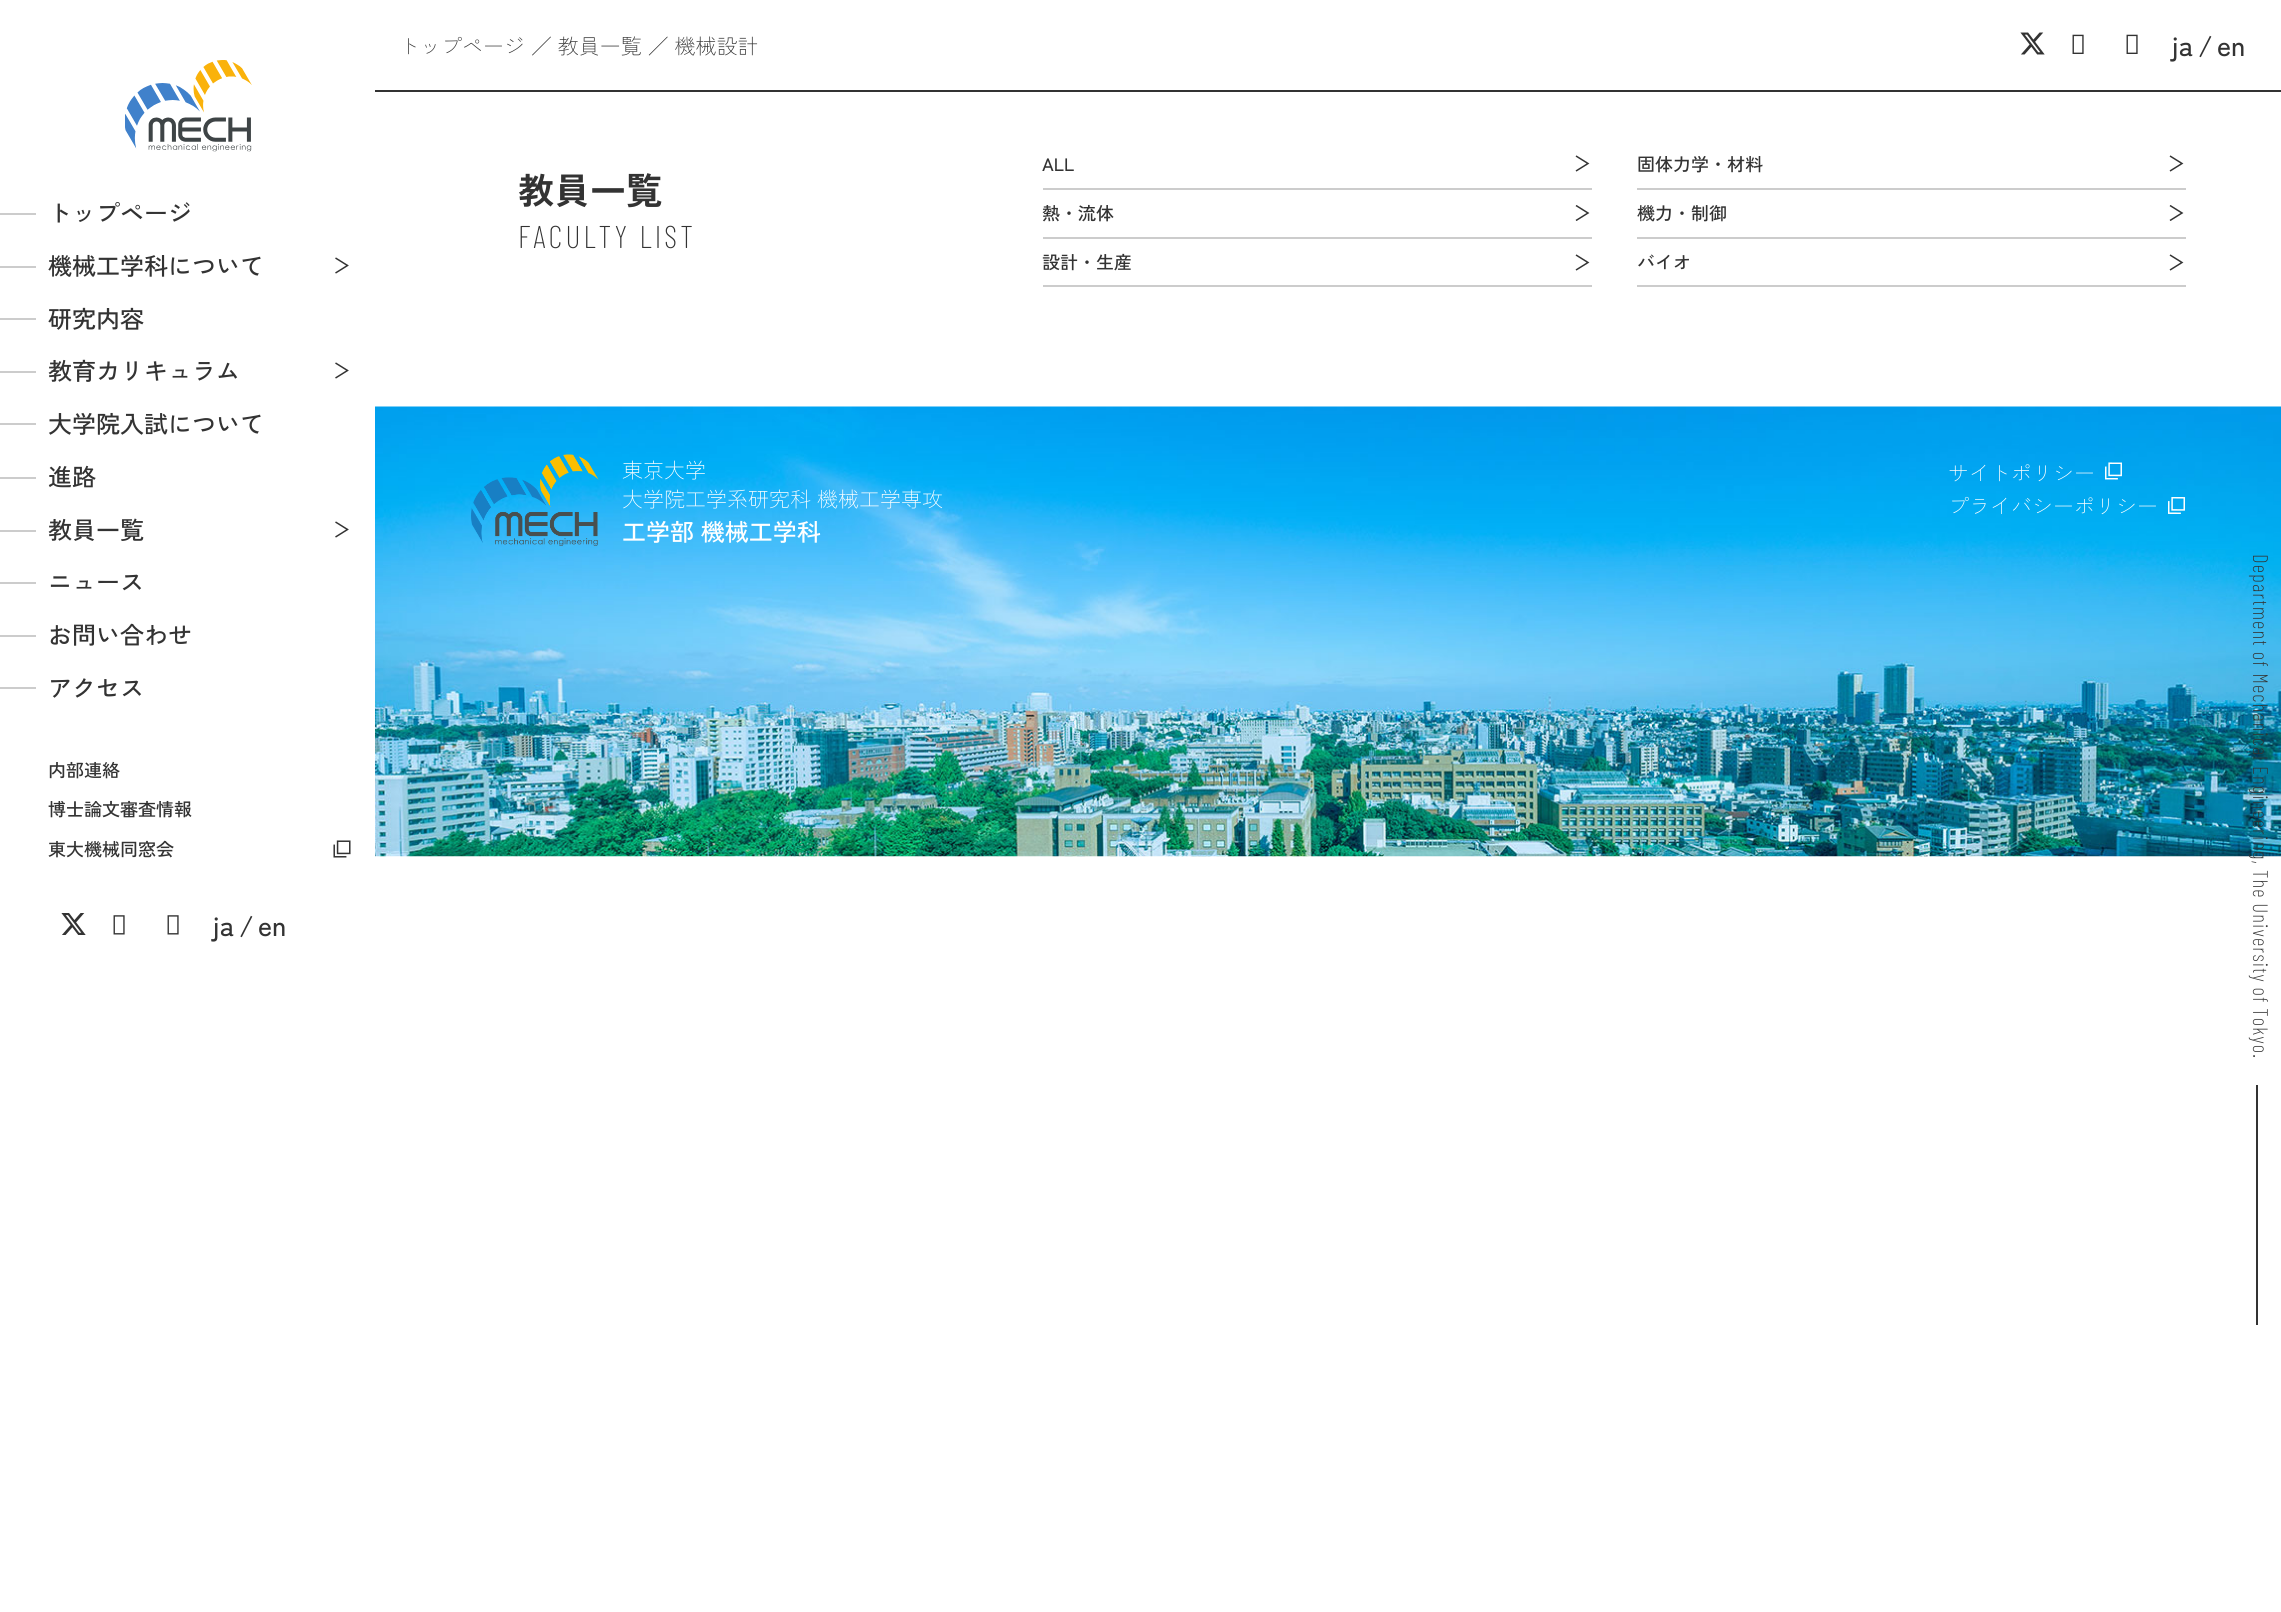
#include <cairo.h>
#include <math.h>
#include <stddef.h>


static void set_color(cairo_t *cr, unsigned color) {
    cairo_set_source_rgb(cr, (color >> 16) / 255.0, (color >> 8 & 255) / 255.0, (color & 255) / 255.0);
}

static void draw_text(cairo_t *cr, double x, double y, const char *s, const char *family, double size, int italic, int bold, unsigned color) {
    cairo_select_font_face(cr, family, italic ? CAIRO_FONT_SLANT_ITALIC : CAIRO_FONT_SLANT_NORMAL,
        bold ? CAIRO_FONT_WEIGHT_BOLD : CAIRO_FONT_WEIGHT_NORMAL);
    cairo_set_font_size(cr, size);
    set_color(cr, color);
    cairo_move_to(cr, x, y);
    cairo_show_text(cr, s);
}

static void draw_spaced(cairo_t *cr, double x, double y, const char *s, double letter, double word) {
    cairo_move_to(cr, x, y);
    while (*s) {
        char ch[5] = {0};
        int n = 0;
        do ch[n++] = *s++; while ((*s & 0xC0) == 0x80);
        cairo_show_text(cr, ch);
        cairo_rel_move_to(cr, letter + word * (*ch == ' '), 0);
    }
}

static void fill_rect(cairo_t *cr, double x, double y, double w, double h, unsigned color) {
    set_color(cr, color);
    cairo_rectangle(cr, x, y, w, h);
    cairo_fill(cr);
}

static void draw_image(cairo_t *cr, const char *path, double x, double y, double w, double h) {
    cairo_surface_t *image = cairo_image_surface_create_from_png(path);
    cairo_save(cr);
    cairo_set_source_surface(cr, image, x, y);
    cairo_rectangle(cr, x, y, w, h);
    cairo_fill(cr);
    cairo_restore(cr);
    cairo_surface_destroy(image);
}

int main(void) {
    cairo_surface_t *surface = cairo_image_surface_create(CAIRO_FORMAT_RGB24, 2281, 1612);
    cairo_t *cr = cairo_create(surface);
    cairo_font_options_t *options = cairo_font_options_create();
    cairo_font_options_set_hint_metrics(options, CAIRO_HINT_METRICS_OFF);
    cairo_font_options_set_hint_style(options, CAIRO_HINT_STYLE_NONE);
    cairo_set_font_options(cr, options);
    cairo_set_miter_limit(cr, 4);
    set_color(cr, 0xFFFFFF);
    cairo_paint(cr);
    draw_image(cr, "assets/img1.png", 2020, 32, 25, 23);
    draw_image(cr, "assets/img2.png", 2072, 34, 12, 20);
    draw_image(cr, "assets/img2.png", 2126, 34, 12, 20);
    draw_text(cr, 2172, 56, "ja", "Zen Kaku Gothic New Medium", 27, 0, 0, 0x333333);
    draw_text(cr, 2198, 56, "/", "Zen Kaku Gothic New Medium", 27, 0, 0, 0x333333);
    draw_text(cr, 2217, 56, "en", "Zen Kaku Gothic New Medium", 27, 0, 0, 0x333333);
    draw_image(cr, "assets/img3.png", 125, 60, 127, 92);
    fill_rect(cr, 0, 213, 36, 2, 0xCCCCCC);
    draw_text(cr, 48, 222, "トップページ", "Zen Kaku Gothic New Medium", 24, 0, 0, 0x333333);
    fill_rect(cr, 0, 266, 36, 2, 0xCCCCCC);
    draw_text(cr, 48, 275, "機械工学科について", "Zen Kaku Gothic New Medium", 24, 0, 0, 0x333333);
    draw_image(cr, "assets/img4.png", 335, 257, 14, 17);
    fill_rect(cr, 0, 318, 36, 2, 0xCCCCCC);
    draw_text(cr, 48, 328, "研究内容", "Zen Kaku Gothic New Medium", 24, 0, 0, 0x333333);
    fill_rect(cr, 0, 371, 36, 2, 0xCCCCCC);
    draw_text(cr, 48, 380, "教育カリキュラム", "Zen Kaku Gothic New Medium", 24, 0, 0, 0x333333);
    draw_image(cr, "assets/img4.png", 335, 362, 14, 17);
    fill_rect(cr, 0, 423, 36, 2, 0xCCCCCC);
    draw_text(cr, 48, 433, "大学院入試について", "Zen Kaku Gothic New Medium", 24, 0, 0, 0x333333);
    fill_rect(cr, 0, 477, 36, 2, 0xCCCCCC);
    draw_text(cr, 48, 486, "進路", "Zen Kaku Gothic New Medium", 24, 0, 0, 0x333333);
    fill_rect(cr, 0, 530, 36, 2, 0xCCCCCC);
    draw_text(cr, 48, 539, "教員一覧", "Zen Kaku Gothic New Medium", 24, 0, 0, 0x333333);
    draw_image(cr, "assets/img4.png", 335, 521, 14, 17);
    fill_rect(cr, 0, 582, 36, 2, 0xCCCCCC);
    draw_text(cr, 48, 591, "ニュース", "Zen Kaku Gothic New Medium", 24, 0, 0, 0x333333);
    fill_rect(cr, 0, 635, 36, 2, 0xCCCCCC);
    draw_text(cr, 48, 644, "お問い合わせ", "Zen Kaku Gothic New Medium", 24, 0, 0, 0x333333);
    fill_rect(cr, 0, 687, 36, 2, 0xCCCCCC);
    draw_text(cr, 48, 697, "アクセス", "Zen Kaku Gothic New Medium", 24, 0, 0, 0x333333);
    draw_text(cr, 48, 777, "内部連絡", "Zen Kaku Gothic New Medium", 18, 0, 0, 0x333333);
    draw_text(cr, 48, 816, "博士論文審査情報", "Zen Kaku Gothic New Medium", 18, 0, 0, 0x333333);
    draw_text(cr, 48, 856, "東大機械同窓会", "Zen Kaku Gothic New Medium", 18, 0, 0, 0x333333);
    draw_image(cr, "assets/img5.png", 333, 840, 18, 18);
    draw_image(cr, "assets/img6.png", 61, 913, 25, 22);
    draw_image(cr, "assets/img7.png", 113, 915, 12, 20);
    draw_image(cr, "assets/img7.png", 167, 915, 12, 20);
    draw_text(cr, 213, 936, "ja", "Zen Kaku Gothic New Medium", 27, 0, 0, 0x333333);
    draw_text(cr, 239, 936, "/", "Zen Kaku Gothic New Medium", 27, 0, 0, 0x333333);
    draw_text(cr, 258, 936, "en", "Zen Kaku Gothic New Medium", 27, 0, 0, 0x333333);
    fill_rect(cr, 375, 90, 1906, 2, 0x333333);
    draw_text(cr, 399, 54, "トップページ ／ 教員一覧 ／ 機械設計", "Zen Kaku Gothic New Light", 21, 0, 0, 0x333333);
    draw_text(cr, 518, 204, "教員一覧", "Zen Kaku Gothic New", 36, 0, 1, 0x333333);
    cairo_select_font_face(cr, "Barlow Condensed ExtraLight", CAIRO_FONT_SLANT_NORMAL, CAIRO_FONT_WEIGHT_NORMAL);
    cairo_set_font_size(cr, 31.5);
    draw_spaced(cr, 518, 248, "FACULTY LIST", 3.1, 0);
    draw_text(cr, 1042, 171, "ALL", "Zen Kaku Gothic New Medium", 18, 0, 0, 0x333333);
    draw_image(cr, "assets/img8.png", 1575, 155, 15, 17);
    fill_rect(cr, 1043, 188, 549, 2, 0xCCCCCC);
    draw_text(cr, 1637, 171, "固体力学・材料", "Zen Kaku Gothic New Medium", 18, 0, 0, 0x333333);
    draw_image(cr, "assets/img8.png", 2169, 155, 15, 17);
    fill_rect(cr, 1637, 188, 549, 2, 0xCCCCCC);
    draw_text(cr, 1042, 220, "熱・流体", "Zen Kaku Gothic New Medium", 18, 0, 0, 0x333333);
    draw_image(cr, "assets/img9.png", 1575, 205, 15, 16);
    fill_rect(cr, 1043, 237, 549, 2, 0xCCCCCC);
    draw_text(cr, 1637, 220, "機力・制御", "Zen Kaku Gothic New Medium", 18, 0, 0, 0x333333);
    draw_image(cr, "assets/img9.png", 2169, 205, 15, 16);
    fill_rect(cr, 1637, 237, 549, 2, 0xCCCCCC);
    draw_text(cr, 1042, 269, "設計・生産", "Zen Kaku Gothic New Medium", 18, 0, 0, 0x333333);
    draw_image(cr, "assets/img8.png", 1575, 254, 15, 17);
    fill_rect(cr, 1043, 285, 549, 2, 0xCCCCCC);
    draw_text(cr, 1637, 269, "バイオ", "Zen Kaku Gothic New Medium", 18, 0, 0, 0x333333);
    draw_image(cr, "assets/img8.png", 2169, 254, 15, 17);
    fill_rect(cr, 1637, 285, 549, 2, 0xCCCCCC);
    draw_image(cr, "assets/img10.png", 375, 406, 1906, 451);
    draw_image(cr, "assets/img11.png", 471, 454, 128, 92);
    draw_text(cr, 622, 478, "東京大学", "Zen Kaku Gothic New Light", 21, 0, 0, 0xFFFFFF);
    draw_text(cr, 622, 507, "大学院工学系研究科 機械工学専攻", "Zen Kaku Gothic New Light", 21, 0, 0, 0xFFFFFF);
    draw_text(cr, 622, 541, "工学部 機械工学科", "Zen Kaku Gothic New Medium", 24, 0, 0, 0xFFFFFF);
    draw_text(cr, 1948, 481, "サイトポリシー", "Zen Kaku Gothic New Light", 21, 0, 0, 0xFFFFFF);
    draw_image(cr, "assets/img12.png", 2105, 462, 17, 18);
    draw_text(cr, 1948, 514, "プライバシーポリシー", "Zen Kaku Gothic New Light", 21, 0, 0, 0xFFFFFF);
    draw_image(cr, "assets/img13.png", 2168, 497, 18, 17);
    cairo_select_font_face(cr, "Barlow Condensed ExtraLight", CAIRO_FONT_SLANT_NORMAL, CAIRO_FONT_WEIGHT_NORMAL);
    set_color(cr, 0x333333);
    cairo_save(cr);
    cairo_translate(cr, 2253, 554);
    cairo_rotate(cr, 90 * M_PI / 180);
    draw_spaced(cr, 0, 0, "Department of Mechanical Engineering,", 1.05, 0);
    cairo_restore(cr);
    cairo_save(cr);
    cairo_translate(cr, 2253, 870);
    cairo_rotate(cr, 90 * M_PI / 180);
    draw_spaced(cr, 0, 0, "The University of Tokyo.", 1.05, -0.5);
    cairo_restore(cr);
    fill_rect(cr, 2256, 1085, 2, 240, 0x333333);
    cairo_surface_write_to_png(surface, "output.png");
    cairo_font_options_destroy(options);
    cairo_destroy(cr);
    cairo_surface_destroy(surface);
    return 0;
}
